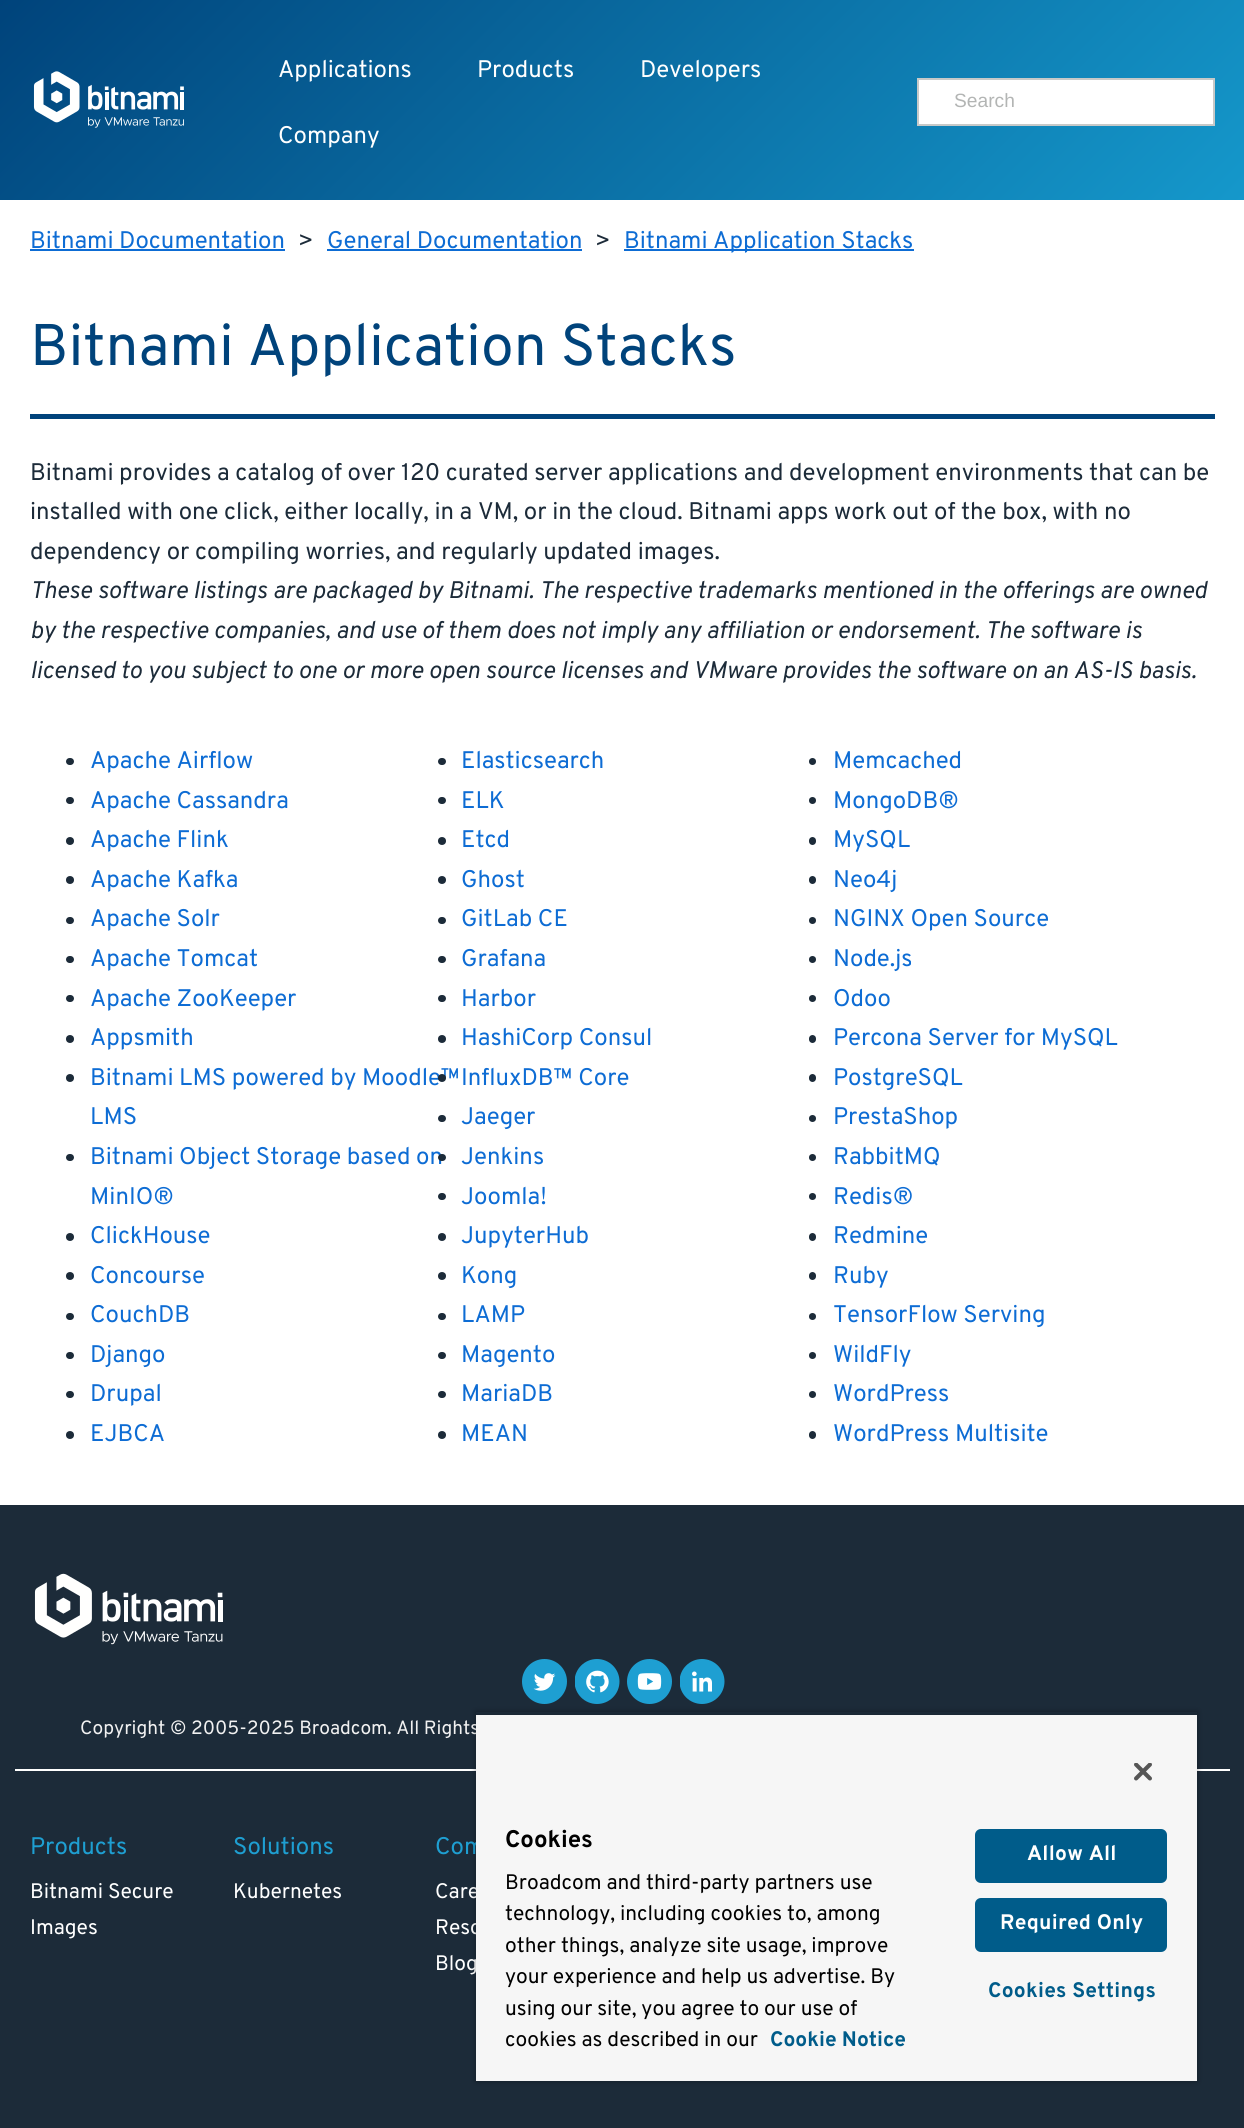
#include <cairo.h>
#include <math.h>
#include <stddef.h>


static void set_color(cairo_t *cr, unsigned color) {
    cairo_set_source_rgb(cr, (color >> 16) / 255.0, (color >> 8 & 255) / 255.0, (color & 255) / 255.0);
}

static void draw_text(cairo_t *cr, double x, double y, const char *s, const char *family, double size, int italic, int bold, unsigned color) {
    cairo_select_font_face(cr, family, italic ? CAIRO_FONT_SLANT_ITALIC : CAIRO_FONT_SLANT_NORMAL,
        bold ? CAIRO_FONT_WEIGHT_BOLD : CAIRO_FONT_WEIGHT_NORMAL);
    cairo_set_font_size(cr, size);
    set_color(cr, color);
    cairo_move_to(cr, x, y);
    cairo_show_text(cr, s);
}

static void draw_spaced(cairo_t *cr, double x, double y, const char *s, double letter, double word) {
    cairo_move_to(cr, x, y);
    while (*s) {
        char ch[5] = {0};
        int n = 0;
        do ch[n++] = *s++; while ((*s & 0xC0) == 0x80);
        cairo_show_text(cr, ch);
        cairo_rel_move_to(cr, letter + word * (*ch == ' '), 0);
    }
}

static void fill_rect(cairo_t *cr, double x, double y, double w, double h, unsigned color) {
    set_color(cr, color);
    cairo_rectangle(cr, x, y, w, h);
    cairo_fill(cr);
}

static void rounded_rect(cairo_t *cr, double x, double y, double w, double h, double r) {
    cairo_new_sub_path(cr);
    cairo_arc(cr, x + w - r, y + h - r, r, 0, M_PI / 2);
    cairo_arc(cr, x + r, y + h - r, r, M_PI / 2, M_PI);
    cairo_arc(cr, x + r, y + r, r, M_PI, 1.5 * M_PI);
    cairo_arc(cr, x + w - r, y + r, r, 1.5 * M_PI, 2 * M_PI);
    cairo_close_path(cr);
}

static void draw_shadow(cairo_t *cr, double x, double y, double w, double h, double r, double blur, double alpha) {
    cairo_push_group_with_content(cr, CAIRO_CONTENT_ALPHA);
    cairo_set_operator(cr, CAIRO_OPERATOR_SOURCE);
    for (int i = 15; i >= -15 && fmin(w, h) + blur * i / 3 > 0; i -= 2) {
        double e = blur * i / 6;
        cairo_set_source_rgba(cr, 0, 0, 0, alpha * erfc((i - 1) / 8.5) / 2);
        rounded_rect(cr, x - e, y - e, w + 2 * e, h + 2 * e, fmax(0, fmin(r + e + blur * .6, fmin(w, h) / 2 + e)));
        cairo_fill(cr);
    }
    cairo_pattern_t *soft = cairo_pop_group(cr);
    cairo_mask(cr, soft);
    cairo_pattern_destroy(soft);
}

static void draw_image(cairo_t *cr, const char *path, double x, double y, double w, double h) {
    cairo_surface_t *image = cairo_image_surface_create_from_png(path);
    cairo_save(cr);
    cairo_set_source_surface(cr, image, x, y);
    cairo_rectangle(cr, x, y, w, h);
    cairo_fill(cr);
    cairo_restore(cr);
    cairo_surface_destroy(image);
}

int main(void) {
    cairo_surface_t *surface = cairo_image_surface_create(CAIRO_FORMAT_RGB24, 1244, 2128);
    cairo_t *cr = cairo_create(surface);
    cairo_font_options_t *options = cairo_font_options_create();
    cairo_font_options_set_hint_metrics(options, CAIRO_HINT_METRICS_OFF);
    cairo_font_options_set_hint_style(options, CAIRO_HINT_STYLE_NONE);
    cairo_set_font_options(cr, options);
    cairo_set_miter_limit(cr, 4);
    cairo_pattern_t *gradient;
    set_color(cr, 0xFFFFFF);
    cairo_paint(cr);
    gradient = cairo_pattern_create_linear(261, -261, 984, 461);
    cairo_pattern_add_color_stop_rgba(gradient, 0, 0, 0.263, 0.482, 1);
    cairo_pattern_add_color_stop_rgba(gradient, 1, 0.082, 0.596, 0.796, 1);
    cairo_set_source(cr, gradient);
    cairo_pattern_destroy(gradient);
    cairo_rectangle(cr, 0, 0, 1244, 200);
    cairo_fill(cr);
    draw_image(cr, "assets/img1.png", 33, 71, 151, 57);
    draw_text(cr, 278, 77, "Applications", "Overpass", 24, 0, 0, 0xFFFFFF);
    draw_text(cr, 477, 77, "Products", "Overpass", 24, 0, 0, 0xFFFFFF);
    draw_text(cr, 640, 77, "Developers", "Overpass", 24, 0, 0, 0xFFFFFF);
    draw_text(cr, 278, 143, "Company", "Overpass", 24, 0, 0, 0xFFFFFF);
    cairo_rectangle(cr, 918, 79, 296, 46);
    cairo_fill_preserve(cr);
    set_color(cr, 0xC7C9C8);
    cairo_stroke(cr);
    draw_text(cr, 954, 107, "Search", "Liberation Sans", 19.2, 0, 0, 0xB3B5B4);
    draw_text(cr, 30, 248, "Bitnami Documentation", "Overpass", 24, 0, 0, 0x0D6CD4);
    fill_rect(cr, 30, 249, 255, 2, 0x0D6CD4);
    draw_text(cr, 298, 248, ">", "Overpass", 24, 0, 0, 0x1C2B39);
    draw_text(cr, 327, 248, "General Documentation", "Overpass", 24, 0, 0, 0x0D6CD4);
    fill_rect(cr, 327, 249, 255, 2, 0x0D6CD4);
    draw_text(cr, 595, 248, ">", "Overpass", 24, 0, 0, 0x1C2B39);
    fill_rect(cr, 624, 249, 290, 2, 0x0D6CD4);
    draw_text(cr, 624, 248, "Bitnami Application Stacks", "Overpass", 24, 0, 0, 0x0D6CD4);
    fill_rect(cr, 30, 414, 1185, 5, 0x00437B);
    draw_text(cr, 30, 365, "Bitnami Application Stacks", "Overpass", 58.6, 0, 0, 0x00437B);
    draw_text(cr, 30, 480, "Bitnami provides a catalog of over 120 curated server applications and development environments that can be", "Overpass", 24, 0, 0, 0x1C2B39);
    draw_text(cr, 30, 519, "installed with one click, either locally, in a VM, or in the cloud. Bitnami apps work out of the box, with no", "Overpass", 24, 0, 0, 0x1C2B39);
    draw_text(cr, 30, 559, "dependency or compiling worries, and regularly updated images.", "Overpass", 24, 0, 0, 0x1C2B39);
    draw_text(cr, 30, 598, "These software listings are packaged by Bitnami. The respective trademarks mentioned in the offerings are owned", "Overpass", 24, 1, 0, 0x1C2B39);
    draw_text(cr, 30, 638, "by the respective companies, and use of them does not imply any affiliation or endorsement. The software is", "Overpass", 24, 1, 0, 0x1C2B39);
    draw_text(cr, 30, 678, "licensed to you subject to one or more open source licenses and VMware provides the software on an AS-IS basis.", "Overpass", 24, 1, 0, 0x1C2B39);
    rounded_rect(cr, 66, 758, 8, 7, 3.5);
    cairo_fill(cr);
    draw_text(cr, 90, 768, "Apache Airflow", "Overpass", 24, 0, 0, 0x0D6CD4);
    set_color(cr, 0x1C2B39);
    rounded_rect(cr, 66, 797, 8, 7, 3.5);
    cairo_fill(cr);
    draw_text(cr, 90, 808, "Apache Cassandra", "Overpass", 24, 0, 0, 0x0D6CD4);
    set_color(cr, 0x1C2B39);
    cairo_new_path(cr);
    cairo_arc(cr, 70, 841, 4, 0, 2 * M_PI);
    cairo_fill(cr);
    draw_text(cr, 90, 847, "Apache Flink", "Overpass", 24, 0, 0, 0x0D6CD4);
    set_color(cr, 0x1C2B39);
    cairo_new_path(cr);
    cairo_arc(cr, 70, 880, 4, 0, 2 * M_PI);
    cairo_fill(cr);
    draw_text(cr, 90, 887, "Apache Kafka", "Overpass", 24, 0, 0, 0x0D6CD4);
    set_color(cr, 0x1C2B39);
    rounded_rect(cr, 66, 917, 8, 7, 3.5);
    cairo_fill(cr);
    draw_text(cr, 90, 926, "Apache Solr", "Overpass", 24, 0, 0, 0x0D6CD4);
    set_color(cr, 0x1C2B39);
    rounded_rect(cr, 66, 956, 8, 7, 3.5);
    cairo_fill(cr);
    draw_text(cr, 90, 966, "Apache Tomcat", "Overpass", 24, 0, 0, 0x0D6CD4);
    set_color(cr, 0x1C2B39);
    rounded_rect(cr, 66, 995, 8, 7, 3.5);
    cairo_fill(cr);
    draw_text(cr, 90, 1006, "Apache ZooKeeper", "Overpass", 24, 0, 0, 0x0D6CD4);
    set_color(cr, 0x1C2B39);
    cairo_new_path(cr);
    cairo_arc(cr, 70, 1039, 4, 0, 2 * M_PI);
    cairo_fill(cr);
    draw_text(cr, 90, 1045, "Appsmith", "Overpass", 24, 0, 0, 0x0D6CD4);
    set_color(cr, 0x1C2B39);
    cairo_new_path(cr);
    cairo_arc(cr, 70, 1078, 4, 0, 2 * M_PI);
    cairo_fill(cr);
    draw_text(cr, 90, 1085, "Bitnami LMS powered by Moodle™", "Overpass", 24, 0, 0, 0x0D6CD4);
    draw_text(cr, 90, 1124, "LMS", "Overpass", 24, 0, 0, 0x0D6CD4);
    set_color(cr, 0x1C2B39);
    rounded_rect(cr, 66, 1154, 8, 7, 3.5);
    cairo_fill(cr);
    draw_text(cr, 90, 1164, "Bitnami Object Storage based on", "Overpass", 24, 0, 0, 0x0D6CD4);
    draw_text(cr, 90, 1204, "MinIO®", "Overpass", 24, 0, 0, 0x0D6CD4);
    set_color(cr, 0x1C2B39);
    cairo_new_path(cr);
    cairo_arc(cr, 70, 1237, 4, 0, 2 * M_PI);
    cairo_fill(cr);
    draw_text(cr, 90, 1243, "ClickHouse", "Overpass", 24, 0, 0, 0x0D6CD4);
    set_color(cr, 0x1C2B39);
    cairo_new_path(cr);
    cairo_arc(cr, 70, 1276, 4, 0, 2 * M_PI);
    cairo_fill(cr);
    draw_text(cr, 90, 1283, "Concourse", "Overpass", 24, 0, 0, 0x0D6CD4);
    set_color(cr, 0x1C2B39);
    rounded_rect(cr, 66, 1313, 8, 7, 3.5);
    cairo_fill(cr);
    draw_text(cr, 90, 1322, "CouchDB", "Overpass", 24, 0, 0, 0x0D6CD4);
    set_color(cr, 0x1C2B39);
    rounded_rect(cr, 66, 1352, 8, 7, 3.5);
    cairo_fill(cr);
    draw_text(cr, 90, 1362, "Django", "Overpass", 24, 0, 0, 0x0D6CD4);
    set_color(cr, 0x1C2B39);
    rounded_rect(cr, 66, 1391, 8, 7, 3.5);
    cairo_fill(cr);
    draw_text(cr, 90, 1401, "Drupal", "Overpass", 24, 0, 0, 0x0D6CD4);
    set_color(cr, 0x1C2B39);
    cairo_new_path(cr);
    cairo_arc(cr, 70, 1435, 4, 0, 2 * M_PI);
    cairo_fill(cr);
    draw_text(cr, 90, 1441, "EJBCA", "Overpass", 24, 0, 0, 0x0D6CD4);
    set_color(cr, 0x1C2B39);
    rounded_rect(cr, 438, 758, 8, 7, 3.5);
    cairo_fill(cr);
    draw_text(cr, 461, 768, "Elasticsearch", "Overpass", 24, 0, 0, 0x0D6CD4);
    set_color(cr, 0x1C2B39);
    rounded_rect(cr, 438, 797, 8, 7, 3.5);
    cairo_fill(cr);
    draw_text(cr, 461, 808, "ELK", "Overpass", 24, 0, 0, 0x0D6CD4);
    set_color(cr, 0x1C2B39);
    cairo_new_path(cr);
    cairo_arc(cr, 442, 841, 4, 0, 2 * M_PI);
    cairo_fill(cr);
    draw_text(cr, 461, 847, "Etcd", "Overpass", 24, 0, 0, 0x0D6CD4);
    set_color(cr, 0x1C2B39);
    cairo_new_path(cr);
    cairo_arc(cr, 442, 880, 4, 0, 2 * M_PI);
    cairo_fill(cr);
    draw_text(cr, 461, 887, "Ghost", "Overpass", 24, 0, 0, 0x0D6CD4);
    set_color(cr, 0x1C2B39);
    rounded_rect(cr, 438, 917, 8, 7, 3.5);
    cairo_fill(cr);
    draw_text(cr, 461, 926, "GitLab CE", "Overpass", 24, 0, 0, 0x0D6CD4);
    set_color(cr, 0x1C2B39);
    rounded_rect(cr, 438, 956, 8, 7, 3.5);
    cairo_fill(cr);
    draw_text(cr, 461, 966, "Grafana", "Overpass", 24, 0, 0, 0x0D6CD4);
    set_color(cr, 0x1C2B39);
    rounded_rect(cr, 438, 995, 8, 7, 3.5);
    cairo_fill(cr);
    draw_text(cr, 461, 1006, "Harbor", "Overpass", 24, 0, 0, 0x0D6CD4);
    set_color(cr, 0x1C2B39);
    cairo_new_path(cr);
    cairo_arc(cr, 442, 1039, 4, 0, 2 * M_PI);
    cairo_fill(cr);
    draw_text(cr, 461, 1045, "HashiCorp Consul", "Overpass", 24, 0, 0, 0x0D6CD4);
    set_color(cr, 0x1C2B39);
    cairo_new_path(cr);
    cairo_arc(cr, 442, 1078, 4, 0, 2 * M_PI);
    cairo_fill(cr);
    draw_text(cr, 461, 1085, "InfluxDB™ Core", "Overpass", 24, 0, 0, 0x0D6CD4);
    set_color(cr, 0x1C2B39);
    rounded_rect(cr, 438, 1115, 8, 7, 3.5);
    cairo_fill(cr);
    draw_text(cr, 461, 1124, "Jaeger", "Overpass", 24, 0, 0, 0x0D6CD4);
    set_color(cr, 0x1C2B39);
    rounded_rect(cr, 438, 1154, 8, 7, 3.5);
    cairo_fill(cr);
    draw_text(cr, 461, 1164, "Jenkins", "Overpass", 24, 0, 0, 0x0D6CD4);
    set_color(cr, 0x1C2B39);
    rounded_rect(cr, 438, 1193, 8, 7, 3.5);
    cairo_fill(cr);
    draw_text(cr, 461, 1204, "Joomla!", "Overpass", 24, 0, 0, 0x0D6CD4);
    set_color(cr, 0x1C2B39);
    cairo_new_path(cr);
    cairo_arc(cr, 442, 1237, 4, 0, 2 * M_PI);
    cairo_fill(cr);
    draw_text(cr, 461, 1243, "JupyterHub", "Overpass", 24, 0, 0, 0x0D6CD4);
    set_color(cr, 0x1C2B39);
    cairo_new_path(cr);
    cairo_arc(cr, 442, 1276, 4, 0, 2 * M_PI);
    cairo_fill(cr);
    draw_text(cr, 461, 1283, "Kong", "Overpass", 24, 0, 0, 0x0D6CD4);
    set_color(cr, 0x1C2B39);
    rounded_rect(cr, 438, 1313, 8, 7, 3.5);
    cairo_fill(cr);
    draw_text(cr, 461, 1322, "LAMP", "Overpass", 24, 0, 0, 0x0D6CD4);
    set_color(cr, 0x1C2B39);
    rounded_rect(cr, 438, 1352, 8, 7, 3.5);
    cairo_fill(cr);
    draw_text(cr, 461, 1362, "Magento", "Overpass", 24, 0, 0, 0x0D6CD4);
    set_color(cr, 0x1C2B39);
    rounded_rect(cr, 438, 1391, 8, 7, 3.5);
    cairo_fill(cr);
    draw_text(cr, 461, 1401, "MariaDB", "Overpass", 24, 0, 0, 0x0D6CD4);
    set_color(cr, 0x1C2B39);
    cairo_new_path(cr);
    cairo_arc(cr, 442, 1435, 4, 0, 2 * M_PI);
    cairo_fill(cr);
    draw_text(cr, 461, 1441, "MEAN", "Overpass", 24, 0, 0, 0x0D6CD4);
    set_color(cr, 0x1C2B39);
    cairo_new_path(cr);
    cairo_arc(cr, 812.5, 761.5, 3.5, 0, 2 * M_PI);
    cairo_fill(cr);
    draw_text(cr, 833, 768, "Memcached", "Overpass", 24, 0, 0, 0x0D6CD4);
    set_color(cr, 0x1C2B39);
    cairo_new_path(cr);
    cairo_arc(cr, 812.5, 800.5, 3.5, 0, 2 * M_PI);
    cairo_fill(cr);
    draw_text(cr, 833, 808, "MongoDB®", "Overpass", 24, 0, 0, 0x0D6CD4);
    set_color(cr, 0x1C2B39);
    rounded_rect(cr, 809, 837, 7, 8, 3.5);
    cairo_fill(cr);
    draw_text(cr, 833, 847, "MySQL", "Overpass", 24, 0, 0, 0x0D6CD4);
    set_color(cr, 0x1C2B39);
    rounded_rect(cr, 809, 876, 7, 8, 3.5);
    cairo_fill(cr);
    draw_text(cr, 833, 887, "Neo4j", "Overpass", 24, 0, 0, 0x0D6CD4);
    set_color(cr, 0x1C2B39);
    cairo_new_path(cr);
    cairo_arc(cr, 812.5, 920.5, 3.5, 0, 2 * M_PI);
    cairo_fill(cr);
    draw_text(cr, 833, 926, "NGINX Open Source", "Overpass", 24, 0, 0, 0x0D6CD4);
    set_color(cr, 0x1C2B39);
    cairo_new_path(cr);
    cairo_arc(cr, 812.5, 959.5, 3.5, 0, 2 * M_PI);
    cairo_fill(cr);
    draw_text(cr, 833, 966, "Node.js", "Overpass", 24, 0, 0, 0x0D6CD4);
    set_color(cr, 0x1C2B39);
    cairo_new_path(cr);
    cairo_arc(cr, 812.5, 998.5, 3.5, 0, 2 * M_PI);
    cairo_fill(cr);
    draw_text(cr, 833, 1006, "Odoo", "Overpass", 24, 0, 0, 0x0D6CD4);
    set_color(cr, 0x1C2B39);
    rounded_rect(cr, 809, 1035, 7, 8, 3.5);
    cairo_fill(cr);
    draw_text(cr, 833, 1045, "Percona Server for MySQL", "Overpass", 24, 0, 0, 0x0D6CD4);
    set_color(cr, 0x1C2B39);
    rounded_rect(cr, 809, 1074, 7, 8, 3.5);
    cairo_fill(cr);
    draw_text(cr, 833, 1085, "PostgreSQL", "Overpass", 24, 0, 0, 0x0D6CD4);
    set_color(cr, 0x1C2B39);
    cairo_new_path(cr);
    cairo_arc(cr, 812.5, 1118.5, 3.5, 0, 2 * M_PI);
    cairo_fill(cr);
    draw_text(cr, 833, 1124, "PrestaShop", "Overpass", 24, 0, 0, 0x0D6CD4);
    set_color(cr, 0x1C2B39);
    cairo_new_path(cr);
    cairo_arc(cr, 812.5, 1157.5, 3.5, 0, 2 * M_PI);
    cairo_fill(cr);
    draw_text(cr, 833, 1164, "RabbitMQ", "Overpass", 24, 0, 0, 0x0D6CD4);
    set_color(cr, 0x1C2B39);
    cairo_new_path(cr);
    cairo_arc(cr, 812.5, 1196.5, 3.5, 0, 2 * M_PI);
    cairo_fill(cr);
    draw_text(cr, 833, 1204, "Redis®", "Overpass", 24, 0, 0, 0x0D6CD4);
    set_color(cr, 0x1C2B39);
    rounded_rect(cr, 809, 1233, 7, 8, 3.5);
    cairo_fill(cr);
    draw_text(cr, 833, 1243, "Redmine", "Overpass", 24, 0, 0, 0x0D6CD4);
    set_color(cr, 0x1C2B39);
    rounded_rect(cr, 809, 1272, 7, 8, 3.5);
    cairo_fill(cr);
    draw_text(cr, 833, 1283, "Ruby", "Overpass", 24, 0, 0, 0x0D6CD4);
    set_color(cr, 0x1C2B39);
    cairo_new_path(cr);
    cairo_arc(cr, 812.5, 1316.5, 3.5, 0, 2 * M_PI);
    cairo_fill(cr);
    draw_text(cr, 833, 1322, "TensorFlow Serving", "Overpass", 24, 0, 0, 0x0D6CD4);
    set_color(cr, 0x1C2B39);
    cairo_new_path(cr);
    cairo_arc(cr, 812.5, 1355.5, 3.5, 0, 2 * M_PI);
    cairo_fill(cr);
    draw_text(cr, 833, 1362, "WildFly", "Overpass", 24, 0, 0, 0x0D6CD4);
    set_color(cr, 0x1C2B39);
    cairo_new_path(cr);
    cairo_arc(cr, 812.5, 1394.5, 3.5, 0, 2 * M_PI);
    cairo_fill(cr);
    draw_text(cr, 833, 1401, "WordPress", "Overpass", 24, 0, 0, 0x0D6CD4);
    set_color(cr, 0x1C2B39);
    rounded_rect(cr, 809, 1431, 7, 8, 3.5);
    cairo_fill(cr);
    draw_text(cr, 833, 1441, "WordPress Multisite", "Overpass", 24, 0, 0, 0x0D6CD4);
    fill_rect(cr, 0, 1505, 1244, 623, 0x1C2B39);
    fill_rect(cr, 15, 1769, 1215, 2, 0xFFFFFF);
    draw_image(cr, "assets/img2.png", 34, 1573, 189, 72);
    draw_image(cr, "assets/img3.png", 522, 1659, 45, 45);
    draw_image(cr, "assets/img4.png", 575, 1659, 45, 45);
    draw_image(cr, "assets/img5.png", 627, 1659, 45, 45);
    draw_image(cr, "assets/img6.png", 680, 1659, 45, 45);
    draw_text(cr, 80, 1734, "Copyright © 2005-2025 Broadcom. All Rights", "Overpass", 19.2, 0, 0, 0xF1F1F1);
    draw_text(cr, 30, 1854, "Products", "Overpass", 24, 0, 0, 0x1E9FD2);
    draw_text(cr, 30, 1898, "Bitnami Secure", "Overpass", 21, 0, 0, 0xFFFFFF);
    draw_text(cr, 30, 1934, "Images", "Overpass", 21, 0, 0, 0xFFFFFF);
    draw_text(cr, 233, 1854, "Solutions", "Overpass", 24, 0, 0, 0x1E9FD2);
    draw_text(cr, 233, 1898, "Kubernetes", "Overpass", 21, 0, 0, 0xFFFFFF);
    draw_text(cr, 435, 1854, "Com", "Overpass", 24, 0, 0, 0x1E9FD2);
    draw_text(cr, 435, 1898, "Care", "Overpass", 21, 0, 0, 0xFFFFFF);
    draw_text(cr, 435, 1934, "Reso", "Overpass", 21, 0, 0, 0xFFFFFF);
    draw_text(cr, 435, 1970, "Blog", "Overpass", 21, 0, 0, 0xFFFFFF);
    cairo_save(cr);
    cairo_set_fill_rule(cr, CAIRO_FILL_RULE_EVEN_ODD);
    cairo_new_path(cr);
    cairo_move_to(cr, 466, 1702);
    cairo_line_to(cr, 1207, 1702);
    cairo_line_to(cr, 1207, 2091);
    cairo_line_to(cr, 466, 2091);
    cairo_close_path(cr);
    cairo_move_to(cr, 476, 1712);
    cairo_line_to(cr, 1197, 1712);
    cairo_line_to(cr, 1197, 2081);
    cairo_line_to(cr, 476, 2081);
    cairo_close_path(cr);
    cairo_clip(cr);
    set_color(cr, 0x000000);
    draw_shadow(cr, 476, 1712, 721, 369, 0, 3, 0.35);
    cairo_restore(cr);
    cairo_save(cr);
    cairo_rectangle(cr, 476, 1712, 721, 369);
    cairo_clip(cr);
    set_color(cr, 0x000000);
    draw_shadow(cr, 476, 1715, 721, 366, 0, 3, 0.2);
    cairo_restore(cr);
    fill_rect(cr, 476, 1715, 721, 366, 0xF6F6F6);
    draw_image(cr, "assets/img7.png", 1134, 1763, 18, 18);
    draw_text(cr, 505, 1847, "Cookies", "Overpass", 24, 0, 1, 0x000000);
    draw_text(cr, 505, 1889, "Broadcom and third-party partners use", "Overpass", 21, 0, 0, 0x000000);
    draw_text(cr, 505, 1920, "technology, including cookies to, among", "Overpass", 21, 0, 0, 0x000000);
    draw_text(cr, 505, 1952, "other things, analyze site usage, improve", "Overpass", 21, 0, 0, 0x000000);
    draw_text(cr, 505, 1983, "your experience and help us advertise. By", "Overpass", 21, 0, 0, 0x000000);
    draw_text(cr, 505, 2015, "using our site, you agree to our use of", "Overpass", 21, 0, 0, 0x000000);
    draw_text(cr, 505, 2046, "cookies as described in our", "Overpass", 21, 0, 0, 0x000000);
    draw_text(cr, 770, 2046, "Cookie Notice", "Overpass", 21, 0, 1, 0x005C8A);
    rounded_rect(cr, 976, 1830, 190, 52, 5);
    cairo_fill_preserve(cr);
    cairo_stroke(cr);
    set_color(cr, 0xFFFFFF);
    draw_spaced(cr, 1027, 1860, "Allow All", 0.25, 0);
    set_color(cr, 0x005C8A);
    rounded_rect(cr, 976, 1899, 190, 52, 5);
    cairo_fill_preserve(cr);
    cairo_stroke(cr);
    set_color(cr, 0xFFFFFF);
    draw_spaced(cr, 1000, 1929, "Required Only", 0.25, 0);
    set_color(cr, 0x005C8A);
    draw_spaced(cr, 988, 1997, "Cookies Settings", 0.25, 0);
    cairo_surface_write_to_png(surface, "output.png");
    cairo_font_options_destroy(options);
    cairo_destroy(cr);
    cairo_surface_destroy(surface);
    return 0;
}
